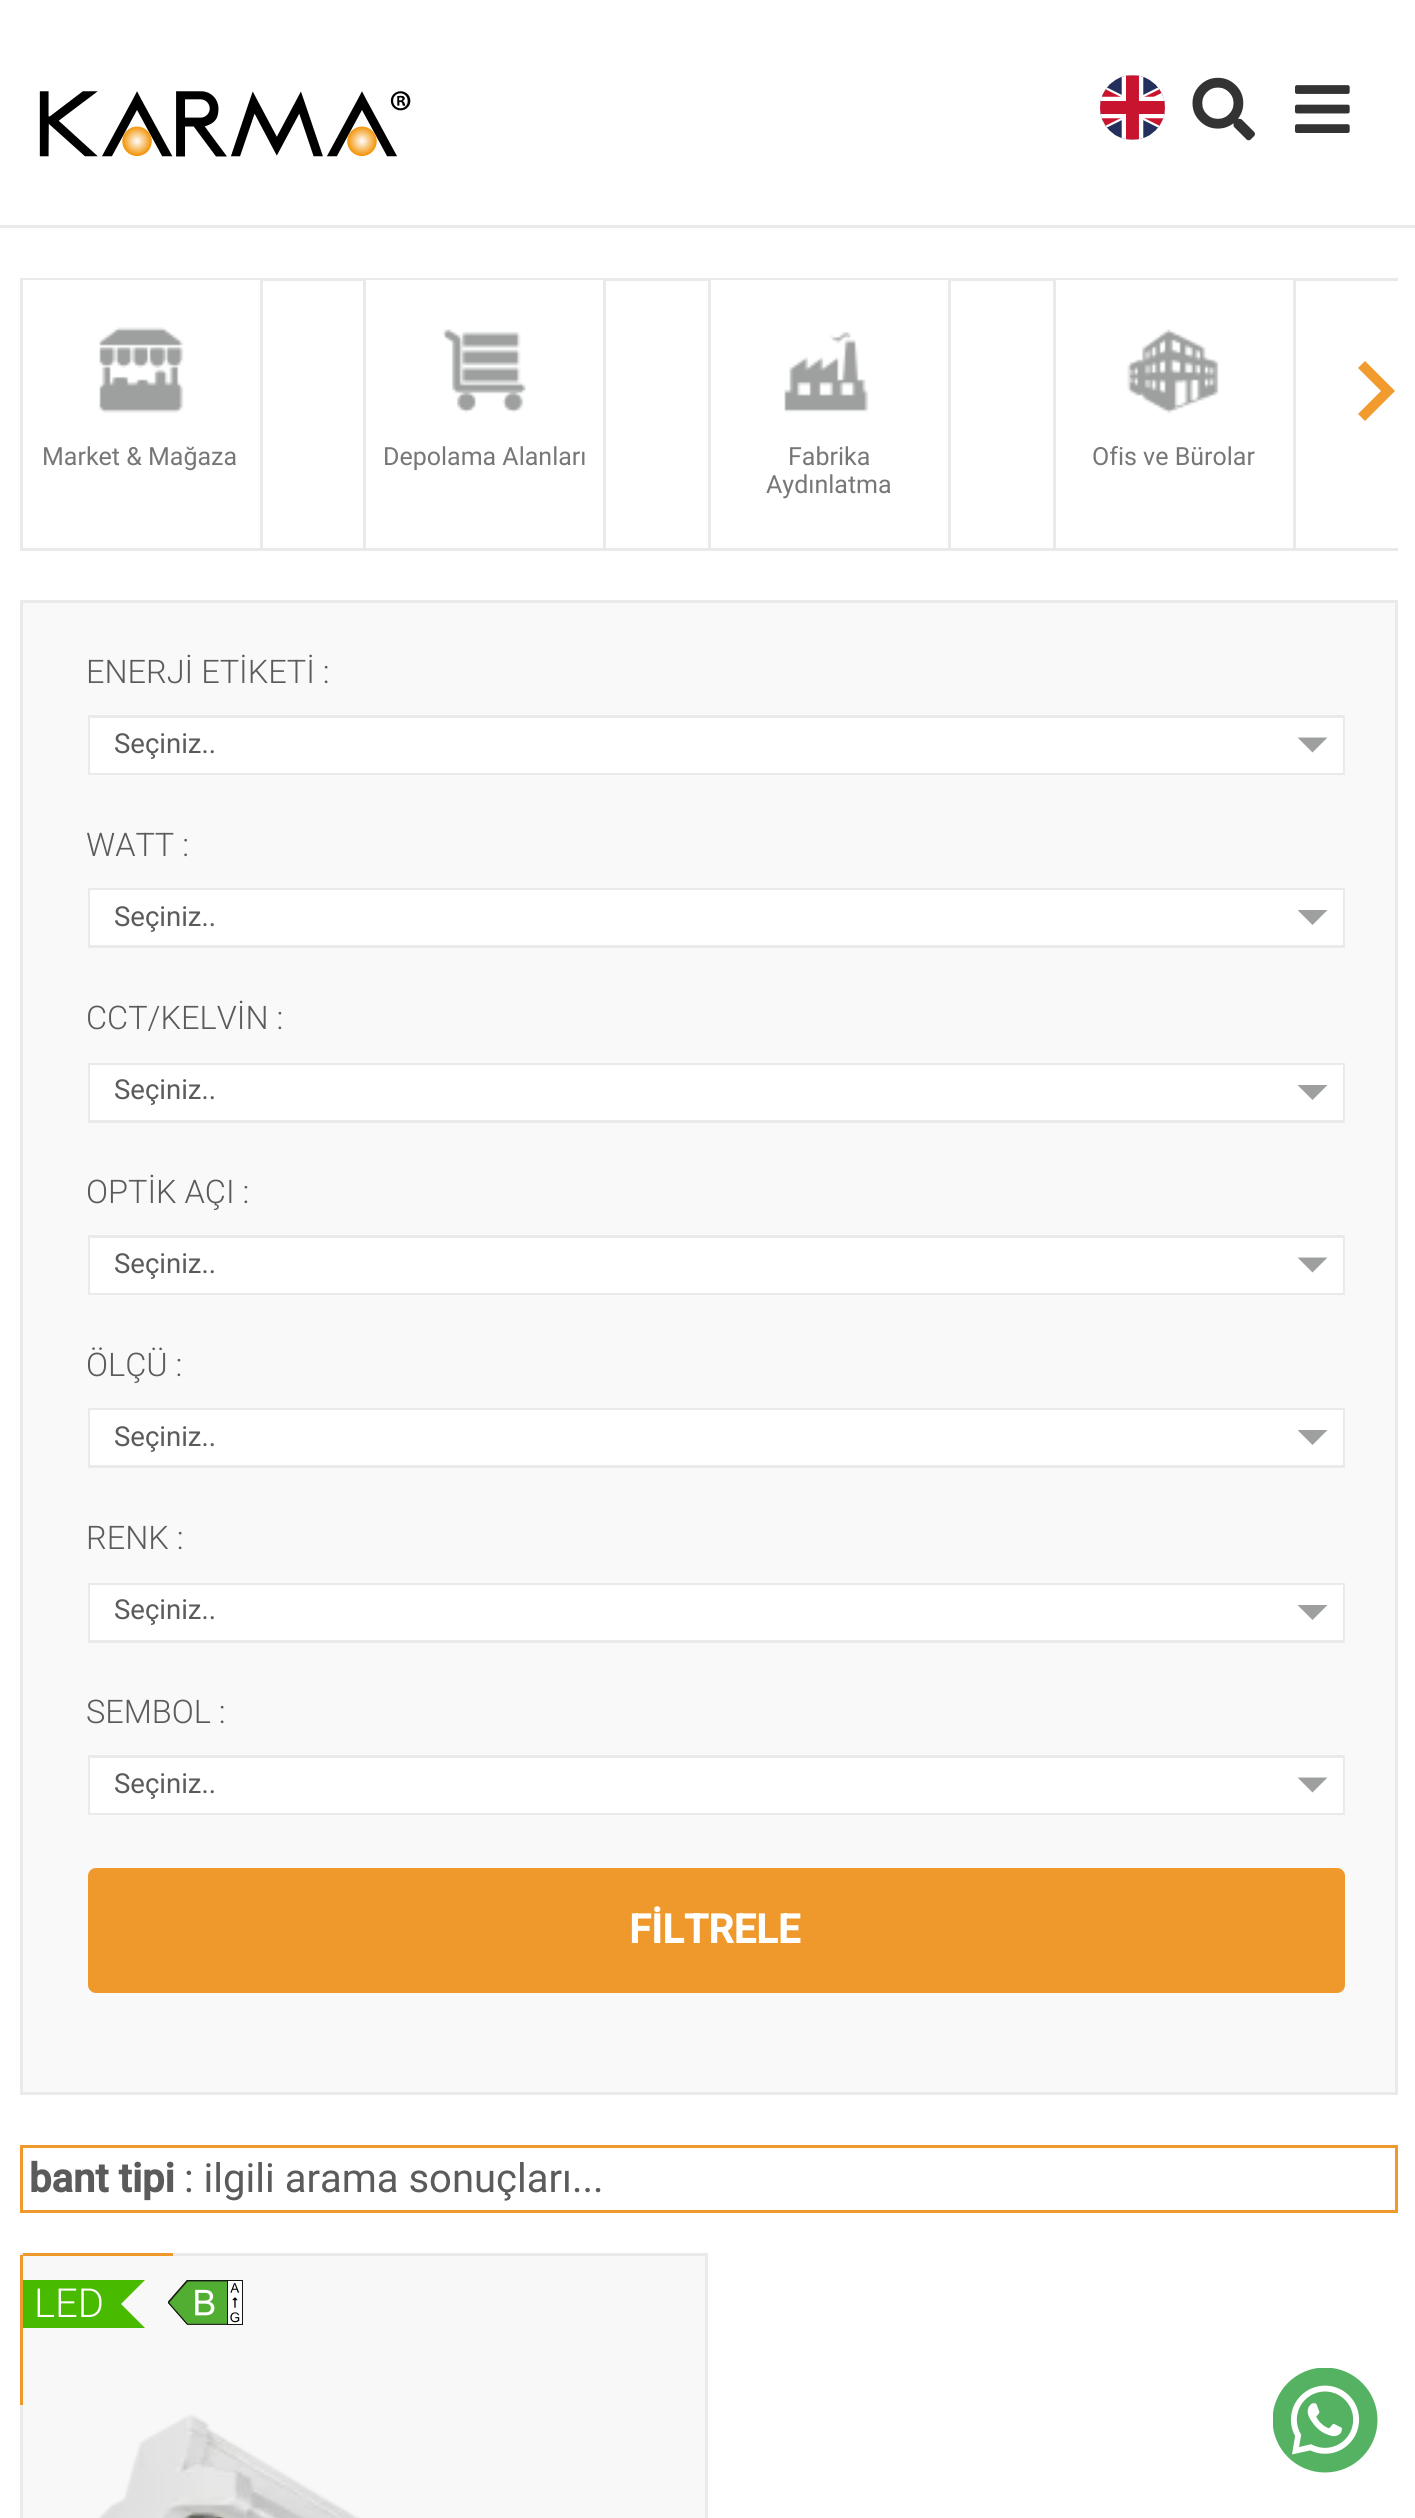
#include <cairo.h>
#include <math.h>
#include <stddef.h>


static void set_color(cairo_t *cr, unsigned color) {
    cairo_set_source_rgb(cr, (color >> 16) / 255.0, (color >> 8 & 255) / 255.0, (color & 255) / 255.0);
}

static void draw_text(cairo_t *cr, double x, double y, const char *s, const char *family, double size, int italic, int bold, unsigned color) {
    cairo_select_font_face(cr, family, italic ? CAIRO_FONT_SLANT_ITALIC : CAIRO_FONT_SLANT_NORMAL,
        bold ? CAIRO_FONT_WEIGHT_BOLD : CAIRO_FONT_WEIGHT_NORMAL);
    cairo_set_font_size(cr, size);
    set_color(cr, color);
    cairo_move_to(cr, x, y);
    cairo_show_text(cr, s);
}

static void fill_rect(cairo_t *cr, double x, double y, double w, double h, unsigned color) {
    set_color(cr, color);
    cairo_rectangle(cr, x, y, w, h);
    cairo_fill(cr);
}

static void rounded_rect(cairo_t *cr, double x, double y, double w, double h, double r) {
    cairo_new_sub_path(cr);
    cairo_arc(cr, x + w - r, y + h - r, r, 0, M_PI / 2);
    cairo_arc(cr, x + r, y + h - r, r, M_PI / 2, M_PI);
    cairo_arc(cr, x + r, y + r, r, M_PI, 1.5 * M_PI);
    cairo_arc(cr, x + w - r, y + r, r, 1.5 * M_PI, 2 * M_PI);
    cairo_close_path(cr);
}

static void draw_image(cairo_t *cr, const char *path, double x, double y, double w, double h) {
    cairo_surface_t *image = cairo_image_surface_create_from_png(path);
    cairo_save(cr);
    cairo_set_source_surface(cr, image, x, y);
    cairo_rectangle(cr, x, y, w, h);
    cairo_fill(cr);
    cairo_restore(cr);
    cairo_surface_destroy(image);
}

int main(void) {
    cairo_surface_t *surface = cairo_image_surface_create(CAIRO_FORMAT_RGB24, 1415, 2518);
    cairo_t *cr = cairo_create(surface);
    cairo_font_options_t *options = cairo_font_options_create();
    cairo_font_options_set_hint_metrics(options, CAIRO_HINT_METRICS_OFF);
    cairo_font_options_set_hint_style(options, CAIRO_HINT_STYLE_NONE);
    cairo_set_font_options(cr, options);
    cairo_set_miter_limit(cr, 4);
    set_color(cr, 0xFFFFFF);
    cairo_paint(cr);
    fill_rect(cr, 0, 225, 1415, 3, 0xE9EAEA);
    draw_image(cr, "assets/img1.png", 39, 91, 372, 66);
    draw_image(cr, "assets/img2.png", 1100, 75, 65, 65);
    draw_image(cr, "assets/img3.png", 1192, 77, 63, 64);
    draw_image(cr, "assets/img4.png", 1295, 85, 55, 48);
    fill_rect(cr, 20, 278, 1378, 3, 0xE9EAEA);
    fill_rect(cr, 20, 548, 1378, 3, 0xE9EAEA);
    set_color(cr, 0xF19A2D);
    cairo_new_path(cr);
    cairo_move_to(cr, 1358, 414);
    cairo_line_to(cr, 1381, 391);
    cairo_line_to(cr, 1358, 368);
    cairo_line_to(cr, 1365, 361);
    cairo_line_to(cr, 1395, 391);
    cairo_line_to(cr, 1365, 421);
    cairo_close_path(cr);
    cairo_fill(cr);
    fill_rect(cr, 23, 280, 237, 1, 0xFFFFFF);
    fill_rect(cr, 260, 280, 3, 268, 0xE9EAEA);
    fill_rect(cr, 20, 280, 3, 268, 0xE9EAEA);
    draw_image(cr, "assets/img5.png", 99, 327, 85, 86);
    draw_text(cr, 42, 465, "Market & Mağaza", "Roboto", 25, 0, 0, 0x777777);
    fill_rect(cr, 366, 280, 237, 1, 0xFFFFFF);
    fill_rect(cr, 603, 280, 3, 268, 0xE9EAEA);
    fill_rect(cr, 363, 280, 3, 268, 0xE9EAEA);
    draw_image(cr, "assets/img6.png", 442, 329, 84, 84);
    draw_text(cr, 383, 465, "Depolama Alanları", "Roboto", 25, 0, 0, 0x777777);
    fill_rect(cr, 711, 280, 237, 1, 0xFFFFFF);
    fill_rect(cr, 948, 280, 3, 268, 0xE9EAEA);
    fill_rect(cr, 708, 280, 3, 268, 0xE9EAEA);
    draw_image(cr, "assets/img7.png", 784, 332, 85, 81);
    draw_text(cr, 788, 465, "Fabrika", "Roboto", 25, 0, 0, 0x777777);
    draw_text(cr, 766, 493, "Aydınlatma", "Roboto", 25, 0, 0, 0x777777);
    fill_rect(cr, 1056, 280, 237, 1, 0xFFFFFF);
    fill_rect(cr, 1293, 280, 3, 268, 0xE9EAEA);
    fill_rect(cr, 1053, 280, 3, 268, 0xE9EAEA);
    draw_image(cr, "assets/img8.png", 1127, 329, 92, 85);
    draw_text(cr, 1092, 465, "Ofis ve Bürolar", "Roboto", 25, 0, 0, 0x777777);
    set_color(cr, 0xF9F9F9);
    cairo_rectangle(cr, 21.5, 601.5, 1375, 1492);
    cairo_fill_preserve(cr);
    set_color(cr, 0xE9EAEA);
    cairo_set_line_width(cr, 3);
    cairo_stroke(cr);
    draw_text(cr, 86, 683, "ENERJİ ETİKETİ :", "Roboto Light", 32.5, 0, 0, 0x5B5B5B);
    cairo_rectangle(cr, 89.5, 716.5, 1254, 57);
    set_color(cr, 0xE9EAEA);
    cairo_stroke(cr);
    fill_rect(cr, 90, 718, 1253, 55, 0xFFFFFF);
    draw_text(cr, 114, 753, "Seçiniz..", "Roboto", 27.5, 0, 0, 0x5B5B5B);
    set_color(cr, 0x9E9F9F);
    cairo_new_path(cr);
    cairo_move_to(cr, 1297.5, 737.5);
    cairo_line_to(cr, 1327.5, 737.5);
    cairo_line_to(cr, 1312.5, 752.5);
    cairo_close_path(cr);
    cairo_fill(cr);
    draw_text(cr, 86, 856, "WATT :", "Roboto Light", 32.5, 0, 0, 0x5B5B5B);
    cairo_rectangle(cr, 89.5, 889.5, 1254, 57);
    set_color(cr, 0xE9EAEA);
    cairo_stroke(cr);
    fill_rect(cr, 90, 890, 1253, 55, 0xFFFFFF);
    draw_text(cr, 114, 926, "Seçiniz..", "Roboto", 27.5, 0, 0, 0x5B5B5B);
    set_color(cr, 0x9E9F9F);
    cairo_new_path(cr);
    cairo_move_to(cr, 1297.5, 910);
    cairo_line_to(cr, 1327.5, 910);
    cairo_line_to(cr, 1312.5, 925);
    cairo_close_path(cr);
    cairo_fill(cr);
    draw_text(cr, 86, 1029, "CCT/KELVİN :", "Roboto Light", 32.5, 0, 0, 0x5B5B5B);
    cairo_rectangle(cr, 89.5, 1064.5, 1254, 57);
    set_color(cr, 0xE9EAEA);
    cairo_stroke(cr);
    fill_rect(cr, 90, 1065, 1253, 55, 0xFFFFFF);
    draw_text(cr, 114, 1099, "Seçiniz..", "Roboto", 27.5, 0, 0, 0x5B5B5B);
    set_color(cr, 0x9E9F9F);
    cairo_new_path(cr);
    cairo_move_to(cr, 1297.5, 1085);
    cairo_line_to(cr, 1327.5, 1085);
    cairo_line_to(cr, 1312.5, 1100);
    cairo_close_path(cr);
    cairo_fill(cr);
    draw_text(cr, 86, 1203, "OPTİK AÇI :", "Roboto Light", 32.5, 0, 0, 0x5B5B5B);
    cairo_rectangle(cr, 89.5, 1236.5, 1254, 57);
    set_color(cr, 0xE9EAEA);
    cairo_stroke(cr);
    fill_rect(cr, 90, 1238, 1253, 55, 0xFFFFFF);
    draw_text(cr, 114, 1273, "Seçiniz..", "Roboto", 27.5, 0, 0, 0x5B5B5B);
    set_color(cr, 0x9E9F9F);
    cairo_new_path(cr);
    cairo_move_to(cr, 1297.5, 1257.5);
    cairo_line_to(cr, 1327.5, 1257.5);
    cairo_line_to(cr, 1312.5, 1272.5);
    cairo_close_path(cr);
    cairo_fill(cr);
    draw_text(cr, 86, 1376, "ÖLÇÜ :", "Roboto Light", 32.5, 0, 0, 0x5B5B5B);
    cairo_rectangle(cr, 89.5, 1409.5, 1254, 57);
    set_color(cr, 0xE9EAEA);
    cairo_stroke(cr);
    fill_rect(cr, 90, 1410, 1253, 55, 0xFFFFFF);
    draw_text(cr, 114, 1446, "Seçiniz..", "Roboto", 27.5, 0, 0, 0x5B5B5B);
    set_color(cr, 0x9E9F9F);
    cairo_new_path(cr);
    cairo_move_to(cr, 1297.5, 1430);
    cairo_line_to(cr, 1327.5, 1430);
    cairo_line_to(cr, 1312.5, 1445);
    cairo_close_path(cr);
    cairo_fill(cr);
    draw_text(cr, 86, 1549, "RENK :", "Roboto Light", 32.5, 0, 0, 0x5B5B5B);
    cairo_rectangle(cr, 89.5, 1584.5, 1254, 57);
    set_color(cr, 0xE9EAEA);
    cairo_stroke(cr);
    fill_rect(cr, 90, 1585, 1253, 55, 0xFFFFFF);
    draw_text(cr, 114, 1619, "Seçiniz..", "Roboto", 27.5, 0, 0, 0x5B5B5B);
    set_color(cr, 0x9E9F9F);
    cairo_new_path(cr);
    cairo_move_to(cr, 1297.5, 1605);
    cairo_line_to(cr, 1327.5, 1605);
    cairo_line_to(cr, 1312.5, 1620);
    cairo_close_path(cr);
    cairo_fill(cr);
    draw_text(cr, 86, 1723, "SEMBOL :", "Roboto Light", 32.5, 0, 0, 0x5B5B5B);
    cairo_rectangle(cr, 89.5, 1756.5, 1254, 57);
    set_color(cr, 0xE9EAEA);
    cairo_stroke(cr);
    fill_rect(cr, 90, 1758, 1253, 55, 0xFFFFFF);
    draw_text(cr, 114, 1793, "Seçiniz..", "Roboto", 27.5, 0, 0, 0x5B5B5B);
    set_color(cr, 0x9E9F9F);
    cairo_new_path(cr);
    cairo_move_to(cr, 1297.5, 1777.5);
    cairo_line_to(cr, 1327.5, 1777.5);
    cairo_line_to(cr, 1312.5, 1792.5);
    cairo_close_path(cr);
    cairo_fill(cr);
    set_color(cr, 0xEF992D);
    rounded_rect(cr, 88, 1868, 1257, 125, 8);
    cairo_fill(cr);
    draw_text(cr, 629, 1943, "FİLTRELE", "Roboto", 40, 0, 1, 0xFFFFFF);
    cairo_rectangle(cr, 21.5, 2146.5, 1375, 65);
    set_color(cr, 0xEF992D);
    cairo_stroke(cr);
    draw_text(cr, 29, 2192, "bant tipi", "Roboto", 40, 0, 1, 0x5B5B5B);
    draw_text(cr, 184, 2192, ": ilgili arama sonuçları...", "Roboto", 40, 0, 0, 0x5B5B5B);
    set_color(cr, 0xF8F8F8);
    cairo_rectangle(cr, 21.5, 2254.5, 685, 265);
    cairo_fill_preserve(cr);
    set_color(cr, 0xE9EAEA);
    cairo_stroke(cr);
    fill_rect(cr, 23, 2253, 150, 3, 0xEF992D);
    fill_rect(cr, 20, 2255, 3, 150, 0xEF992D);
    fill_rect(cr, 23, 2280, 82, 48, 0x48BA00);
    draw_text(cr, 34, 2317, "LED", "Roboto Light", 40, 0, 0, 0xFFFFFF);
    set_color(cr, 0x48BA00);
    cairo_new_path(cr);
    cairo_move_to(cr, 105, 2280);
    cairo_line_to(cr, 145, 2280);
    cairo_line_to(cr, 105, 2320);
    cairo_close_path(cr);
    cairo_fill(cr);
    cairo_new_path(cr);
    cairo_move_to(cr, 105, 2328);
    cairo_line_to(cr, 105, 2288);
    cairo_line_to(cr, 145, 2328);
    cairo_close_path(cr);
    cairo_fill(cr);
    draw_image(cr, "assets/img9.png", 168, 2280, 59, 45);
    draw_image(cr, "assets/img10.png", 168, 2280, 75, 45);
    draw_image(cr, "assets/img11.png", 98, 2414, 262, 104);
    draw_image(cr, "assets/img12.png", 1273, 2368, 105, 105);
    cairo_surface_write_to_png(surface, "output.png");
    cairo_font_options_destroy(options);
    cairo_destroy(cr);
    cairo_surface_destroy(surface);
    return 0;
}
